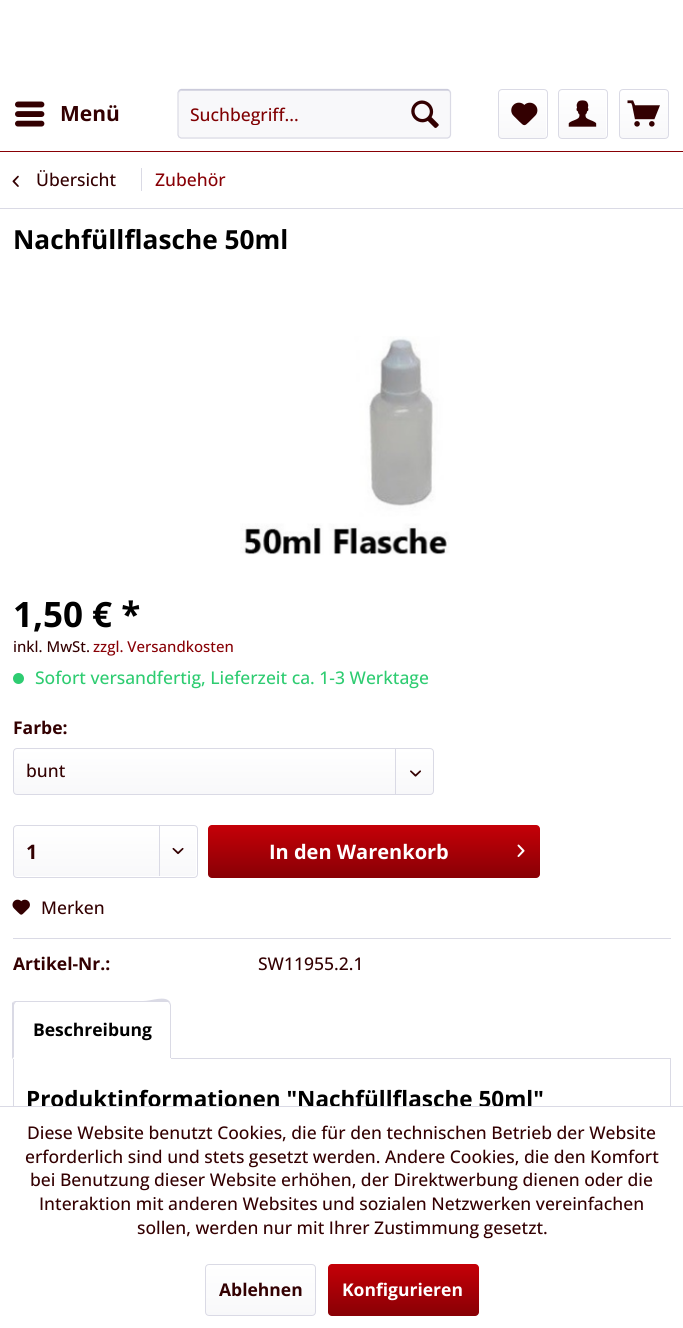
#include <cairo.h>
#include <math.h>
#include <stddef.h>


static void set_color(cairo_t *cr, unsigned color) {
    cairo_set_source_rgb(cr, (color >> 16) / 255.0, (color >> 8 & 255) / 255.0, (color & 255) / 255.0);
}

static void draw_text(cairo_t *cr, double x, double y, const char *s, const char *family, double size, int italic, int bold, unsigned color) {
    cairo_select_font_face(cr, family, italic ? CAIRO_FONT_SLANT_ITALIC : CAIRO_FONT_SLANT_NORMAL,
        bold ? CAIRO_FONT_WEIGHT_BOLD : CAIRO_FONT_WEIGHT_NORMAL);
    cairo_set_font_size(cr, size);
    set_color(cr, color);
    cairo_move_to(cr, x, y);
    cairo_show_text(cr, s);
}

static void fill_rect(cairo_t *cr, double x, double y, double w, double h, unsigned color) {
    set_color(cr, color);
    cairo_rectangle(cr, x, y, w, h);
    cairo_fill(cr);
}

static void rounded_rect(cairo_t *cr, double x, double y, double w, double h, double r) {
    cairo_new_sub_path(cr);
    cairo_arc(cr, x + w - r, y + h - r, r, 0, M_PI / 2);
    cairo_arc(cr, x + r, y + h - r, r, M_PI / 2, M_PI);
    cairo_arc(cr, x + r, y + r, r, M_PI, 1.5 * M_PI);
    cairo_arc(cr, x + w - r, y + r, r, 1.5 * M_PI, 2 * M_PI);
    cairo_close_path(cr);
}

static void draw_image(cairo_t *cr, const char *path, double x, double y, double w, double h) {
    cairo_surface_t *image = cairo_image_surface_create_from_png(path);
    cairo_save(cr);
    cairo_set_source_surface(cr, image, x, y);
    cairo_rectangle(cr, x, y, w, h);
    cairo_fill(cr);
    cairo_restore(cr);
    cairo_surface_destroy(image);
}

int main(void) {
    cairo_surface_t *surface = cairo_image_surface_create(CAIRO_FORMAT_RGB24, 683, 1328);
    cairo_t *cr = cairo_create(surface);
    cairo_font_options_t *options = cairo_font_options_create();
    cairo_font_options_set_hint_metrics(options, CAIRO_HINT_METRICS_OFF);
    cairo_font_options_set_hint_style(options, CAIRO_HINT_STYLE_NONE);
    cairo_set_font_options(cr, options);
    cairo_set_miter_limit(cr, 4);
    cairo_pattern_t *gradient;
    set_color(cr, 0xFFFFFF);
    cairo_paint(cr);
    fill_rect(cr, 0, 151, 683, 1, 0x880005);
    draw_image(cr, "assets/img1.png", 15, 101, 30, 26);
    draw_text(cr, 60, 121, "Menü", "Open Sans", 21, 0, 1, 0x330001);
    set_color(cr, 0xF8F8FA);
    rounded_rect(cr, 178, 89, 273, 50, 4);
    cairo_fill(cr);
    set_color(cr, 0xDADAE5);
    cairo_new_path(cr);
    cairo_move_to(cr, 181, 91);
    cairo_line_to(cr, 448, 91);
    cairo_curve_to(cr, 449, 91, 450, 92, 450, 94);
    cairo_line_to(cr, 450, 92);
    cairo_curve_to(cr, 450, 91, 449, 90, 448, 90);
    cairo_line_to(cr, 182, 90);
    cairo_curve_to(cr, 180, 90, 179, 91, 179, 92);
    cairo_line_to(cr, 179, 94);
    cairo_curve_to(cr, 179, 92, 180, 91, 181, 91);
    cairo_close_path(cr);
    cairo_fill(cr);
    cairo_new_path(cr);
    cairo_move_to(cr, 179, 90.5);
    cairo_line_to(cr, 181, 89.5);
    cairo_line_to(cr, 447.5, 89.5);
    cairo_line_to(cr, 449.5, 90.5);
    set_color(cr, 0xCBCBDB);
    cairo_set_line_width(cr, 1.2);
    cairo_stroke(cr);
    cairo_new_path(cr);
    cairo_move_to(cr, 449.5, 90.5);
    cairo_line_to(cr, 450.5, 92.5);
    cairo_line_to(cr, 450.5, 135);
    cairo_line_to(cr, 449.5, 137);
    cairo_line_to(cr, 447.5, 138);
    cairo_line_to(cr, 181, 138);
    cairo_line_to(cr, 179, 137);
    cairo_line_to(cr, 178, 135);
    cairo_line_to(cr, 178, 92.5);
    cairo_line_to(cr, 179, 90.5);
    set_color(cr, 0xDADAE5);
    cairo_stroke(cr);
    cairo_save(cr);
    cairo_rectangle(cr, 190, 101, 208, 24);
    cairo_clip(cr);
    draw_text(cr, 190, 121, "Suchbegriff...", "Open Sans Medium", 17.5, 0, 0, 0x800002);
    cairo_restore(cr);
    draw_image(cr, "assets/img2.png", 411, 100, 28, 28);
    gradient = cairo_pattern_create_linear(523, 90, 523, 138);
    cairo_pattern_add_color_stop_rgba(gradient, 0, 1, 1, 1, 1);
    cairo_pattern_add_color_stop_rgba(gradient, 1, 0.973, 0.973, 0.98, 1);
    cairo_set_source(cr, gradient);
    cairo_pattern_destroy(gradient);
    rounded_rect(cr, 499, 90, 47, 48, 2.5);
    cairo_fill(cr);
    rounded_rect(cr, 498.5, 89.5, 49, 49, 3.5);
    set_color(cr, 0xDADAE5);
    cairo_set_line_width(cr, 1);
    cairo_stroke(cr);
    draw_image(cr, "assets/img3.png", 511, 102, 27, 24);
    gradient = cairo_pattern_create_linear(583, 90, 583, 138);
    cairo_pattern_add_color_stop_rgba(gradient, 0, 1, 1, 1, 1);
    cairo_pattern_add_color_stop_rgba(gradient, 1, 0.973, 0.973, 0.98, 1);
    cairo_set_source(cr, gradient);
    cairo_pattern_destroy(gradient);
    rounded_rect(cr, 559, 90, 47, 48, 2.5);
    cairo_fill(cr);
    rounded_rect(cr, 558.5, 89.5, 49, 49, 3.5);
    set_color(cr, 0xDADAE5);
    cairo_stroke(cr);
    draw_image(cr, "assets/img4.png", 568, 100, 29, 27);
    gradient = cairo_pattern_create_linear(644, 90, 644, 138);
    cairo_pattern_add_color_stop_rgba(gradient, 0, 1, 1, 1, 1);
    cairo_pattern_add_color_stop_rgba(gradient, 1, 0.973, 0.973, 0.98, 1);
    cairo_set_source(cr, gradient);
    cairo_pattern_destroy(gradient);
    rounded_rect(cr, 620, 90, 48, 48, 2.5);
    cairo_fill(cr);
    rounded_rect(cr, 619.5, 89.5, 49, 49, 3.5);
    set_color(cr, 0xDADAE5);
    cairo_stroke(cr);
    draw_image(cr, "assets/img5.png", 627, 100, 33, 27);
    fill_rect(cr, 0, 208, 683, 1, 0xDADAE5);
    draw_image(cr, "assets/img6.png", 12, 175, 7, 12);
    draw_text(cr, 36, 186, "Übersicht", "Open Sans Medium", 17.5, 0, 0, 0x330001);
    fill_rect(cr, 141, 168, 1, 23, 0xDADAE5);
    draw_text(cr, 155, 186, "Zubehör", "Open Sans Medium", 17.5, 0, 0, 0x880005);
    draw_text(cr, 13, 249, "Nachfüllflasche 50ml", "Open Sans", 26.25, 0, 1, 0x000000);
    draw_image(cr, "assets/img7.png", 240, 336, 210, 219);
    draw_text(cr, 13, 627, "1,50 € *", "Open Sans", 35, 0, 1, 0x000000);
    draw_text(cr, 13, 652, "inkl. MwSt.", "Open Sans Medium", 15, 0, 0, 0x330001);
    draw_text(cr, 93, 652, "zzgl. Versandkosten", "Open Sans Medium", 15, 0, 0, 0x880005);
    set_color(cr, 0x2ECC71);
    cairo_new_path(cr);
    cairo_arc(cr, 18.5, 678.5, 5.5, 0, 2 * M_PI);
    cairo_fill(cr);
    draw_text(cr, 35, 684, "Sofort versandfertig, Lieferzeit ca. 1-3 Werktage", "Open Sans Medium", 17.5, 0, 0, 0x2ECC71);
    draw_text(cr, 13, 734, "Farbe:", "Open Sans", 17.5, 0, 1, 0x330001);
    gradient = cairo_pattern_create_linear(223, 749, 223, 794);
    cairo_pattern_add_color_stop_rgba(gradient, 0, 1, 1, 1, 1);
    cairo_pattern_add_color_stop_rgba(gradient, 1, 0.973, 0.973, 0.98, 1);
    cairo_set_source(cr, gradient);
    cairo_pattern_destroy(gradient);
    rounded_rect(cr, 14, 749, 419, 45, 2.5);
    cairo_fill(cr);
    rounded_rect(cr, 13.5, 748.5, 420, 46, 3.5);
    set_color(cr, 0xDADAE5);
    cairo_stroke(cr);
    draw_text(cr, 26, 777, "bunt", "Open Sans Medium", 17.5, 0, 0, 0x330001);
    fill_rect(cr, 395, 749, 1, 45, 0xDADAE5);
    draw_image(cr, "assets/img8.png", 410, 770, 11, 7);
    gradient = cairo_pattern_create_linear(105, 826, 105, 876);
    cairo_pattern_add_color_stop_rgba(gradient, 0, 1, 1, 1, 1);
    cairo_pattern_add_color_stop_rgba(gradient, 1, 0.973, 0.973, 0.98, 1);
    cairo_set_source(cr, gradient);
    cairo_pattern_destroy(gradient);
    rounded_rect(cr, 14, 826, 182, 50, 2.5);
    cairo_fill(cr);
    rounded_rect(cr, 13.5, 825.5, 184, 52, 3.5);
    set_color(cr, 0xDADAE5);
    cairo_stroke(cr);
    draw_text(cr, 26, 859, "1", "Open Sans", 20, 0, 1, 0x330001);
    fill_rect(cr, 159, 826, 1, 50, 0xDADAE5);
    draw_image(cr, "assets/img9.png", 172, 847, 12, 8);
    gradient = cairo_pattern_create_linear(374, 825, 374, 878);
    cairo_pattern_add_color_stop_rgba(gradient, 0, 0.773, 0, 0.027, 1);
    cairo_pattern_add_color_stop_rgba(gradient, 1, 0.533, 0, 0.02, 1);
    cairo_set_source(cr, gradient);
    cairo_pattern_destroy(gradient);
    rounded_rect(cr, 208, 825, 332, 53, 4);
    cairo_fill(cr);
    draw_text(cr, 269, 859, "In den Warenkorb", "Open Sans", 20, 0, 1, 0xFFFFFF);
    draw_image(cr, "assets/img10.png", 517, 844, 8, 13);
    fill_rect(cr, 13, 938, 658, 1, 0xDADAE5);
    draw_image(cr, "assets/img11.png", 12, 899, 18, 16);
    draw_text(cr, 41, 914, "Merken", "Open Sans Medium", 17.5, 0, 0, 0x330001);
    draw_text(cr, 13, 970, "Artikel-Nr.:", "Open Sans", 17.5, 0, 1, 0x330001);
    draw_text(cr, 258, 970, "SW11955.2.1", "Open Sans Medium", 17.5, 0, 0, 0x330001);
    cairo_rectangle(cr, 13.5, 1058.5, 657, 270);
    set_color(cr, 0xDADAE5);
    cairo_stroke(cr);
    set_color(cr, 0xFFFFFF);
    cairo_new_path(cr);
    cairo_move_to(cr, 17, 1001);
    cairo_line_to(cr, 167, 1001);
    cairo_curve_to(cr, 169, 1001, 171, 1003, 171, 1005);
    cairo_line_to(cr, 171, 1059);
    cairo_line_to(cr, 13, 1059);
    cairo_line_to(cr, 13, 1005);
    cairo_curve_to(cr, 13, 1003, 15, 1001, 17, 1001);
    cairo_close_path(cr);
    cairo_fill(cr);
    set_color(cr, 0xDADAE5);
    cairo_new_path(cr);
    cairo_move_to(cr, 16, 1002);
    cairo_line_to(cr, 15, 1003);
    cairo_line_to(cr, 13, 1002);
    cairo_line_to(cr, 15, 1001);
    cairo_line_to(cr, 143, 1001);
    cairo_curve_to(cr, 152, 1001, 165, 995, 170, 1002);
    cairo_line_to(cr, 169, 1003);
    cairo_line_to(cr, 168, 1002);
    cairo_close_path(cr);
    cairo_fill(cr);
    cairo_new_path(cr);
    cairo_move_to(cr, 170, 1002);
    cairo_line_to(cr, 171, 1005);
    cairo_line_to(cr, 171, 1058);
    cairo_line_to(cr, 170, 1058);
    cairo_line_to(cr, 170, 1005);
    cairo_line_to(cr, 169, 1003);
    cairo_close_path(cr);
    cairo_fill(cr);
    cairo_new_path(cr);
    cairo_move_to(cr, 12, 1059);
    cairo_line_to(cr, 12, 1003);
    cairo_line_to(cr, 13, 1002);
    cairo_line_to(cr, 15, 1003);
    cairo_line_to(cr, 14, 1005);
    cairo_line_to(cr, 14, 1057);
    cairo_close_path(cr);
    cairo_fill(cr);
    draw_text(cr, 33, 1036, "Beschreibung", "Open Sans", 17.5, 0, 1, 0x000000);
    draw_text(cr, 26, 1107, "Produktinformationen \"Nachfüllflasche 50ml\"", "Open Sans", 22.5, 0, 1, 0x000000);
    fill_rect(cr, 13, 1107, 658, 221, 0xFFFFFF);
    fill_rect(cr, 0, 1106, 683, 1, 0xDADAE5);
    draw_text(cr, 27, 1139, "Diese Website benutzt Cookies, die für den technischen Betrieb der Website", "Open Sans Medium", 17.5, 0, 0, 0x330001);
    draw_text(cr, 25, 1163, "erforderlich sind und stets gesetzt werden. Andere Cookies, die den Komfort", "Open Sans Medium", 17.5, 0, 0, 0x330001);
    draw_text(cr, 30, 1186, "bei Benutzung dieser Website erhöhen, der Direktwerbung dienen oder die", "Open Sans Medium", 17.5, 0, 0, 0x330001);
    draw_text(cr, 39, 1210, "Interaktion mit anderen Websites und sozialen Netzwerken vereinfachen", "Open Sans Medium", 17.5, 0, 0, 0x330001);
    draw_text(cr, 137, 1234, "sollen, werden nur mit Ihrer Zustimmung gesetzt.", "Open Sans Medium", 17.5, 0, 0, 0x330001);
    gradient = cairo_pattern_create_linear(261, 1265, 261, 1315);
    cairo_pattern_add_color_stop_rgba(gradient, 0, 1, 1, 1, 1);
    cairo_pattern_add_color_stop_rgba(gradient, 1, 0.973, 0.973, 0.98, 1);
    cairo_set_source(cr, gradient);
    cairo_pattern_destroy(gradient);
    rounded_rect(cr, 206, 1265, 109, 50, 2.5);
    cairo_fill(cr);
    rounded_rect(cr, 205.5, 1264.5, 110, 51, 3.5);
    set_color(cr, 0xDADAE5);
    cairo_stroke(cr);
    draw_text(cr, 219, 1296, "Ablehnen", "Open Sans", 17.5, 0, 1, 0x330001);
    gradient = cairo_pattern_create_linear(403, 1264, 403, 1316);
    cairo_pattern_add_color_stop_rgba(gradient, 0, 0.773, 0, 0.027, 1);
    cairo_pattern_add_color_stop_rgba(gradient, 1, 0.533, 0, 0.02, 1);
    cairo_set_source(cr, gradient);
    cairo_pattern_destroy(gradient);
    rounded_rect(cr, 328, 1264, 151, 52, 4);
    cairo_fill(cr);
    draw_text(cr, 342, 1296, "Konfigurieren", "Open Sans", 17.5, 0, 1, 0xFFFFFF);
    cairo_surface_write_to_png(surface, "output.png");
    cairo_font_options_destroy(options);
    cairo_destroy(cr);
    cairo_surface_destroy(surface);
    return 0;
}
